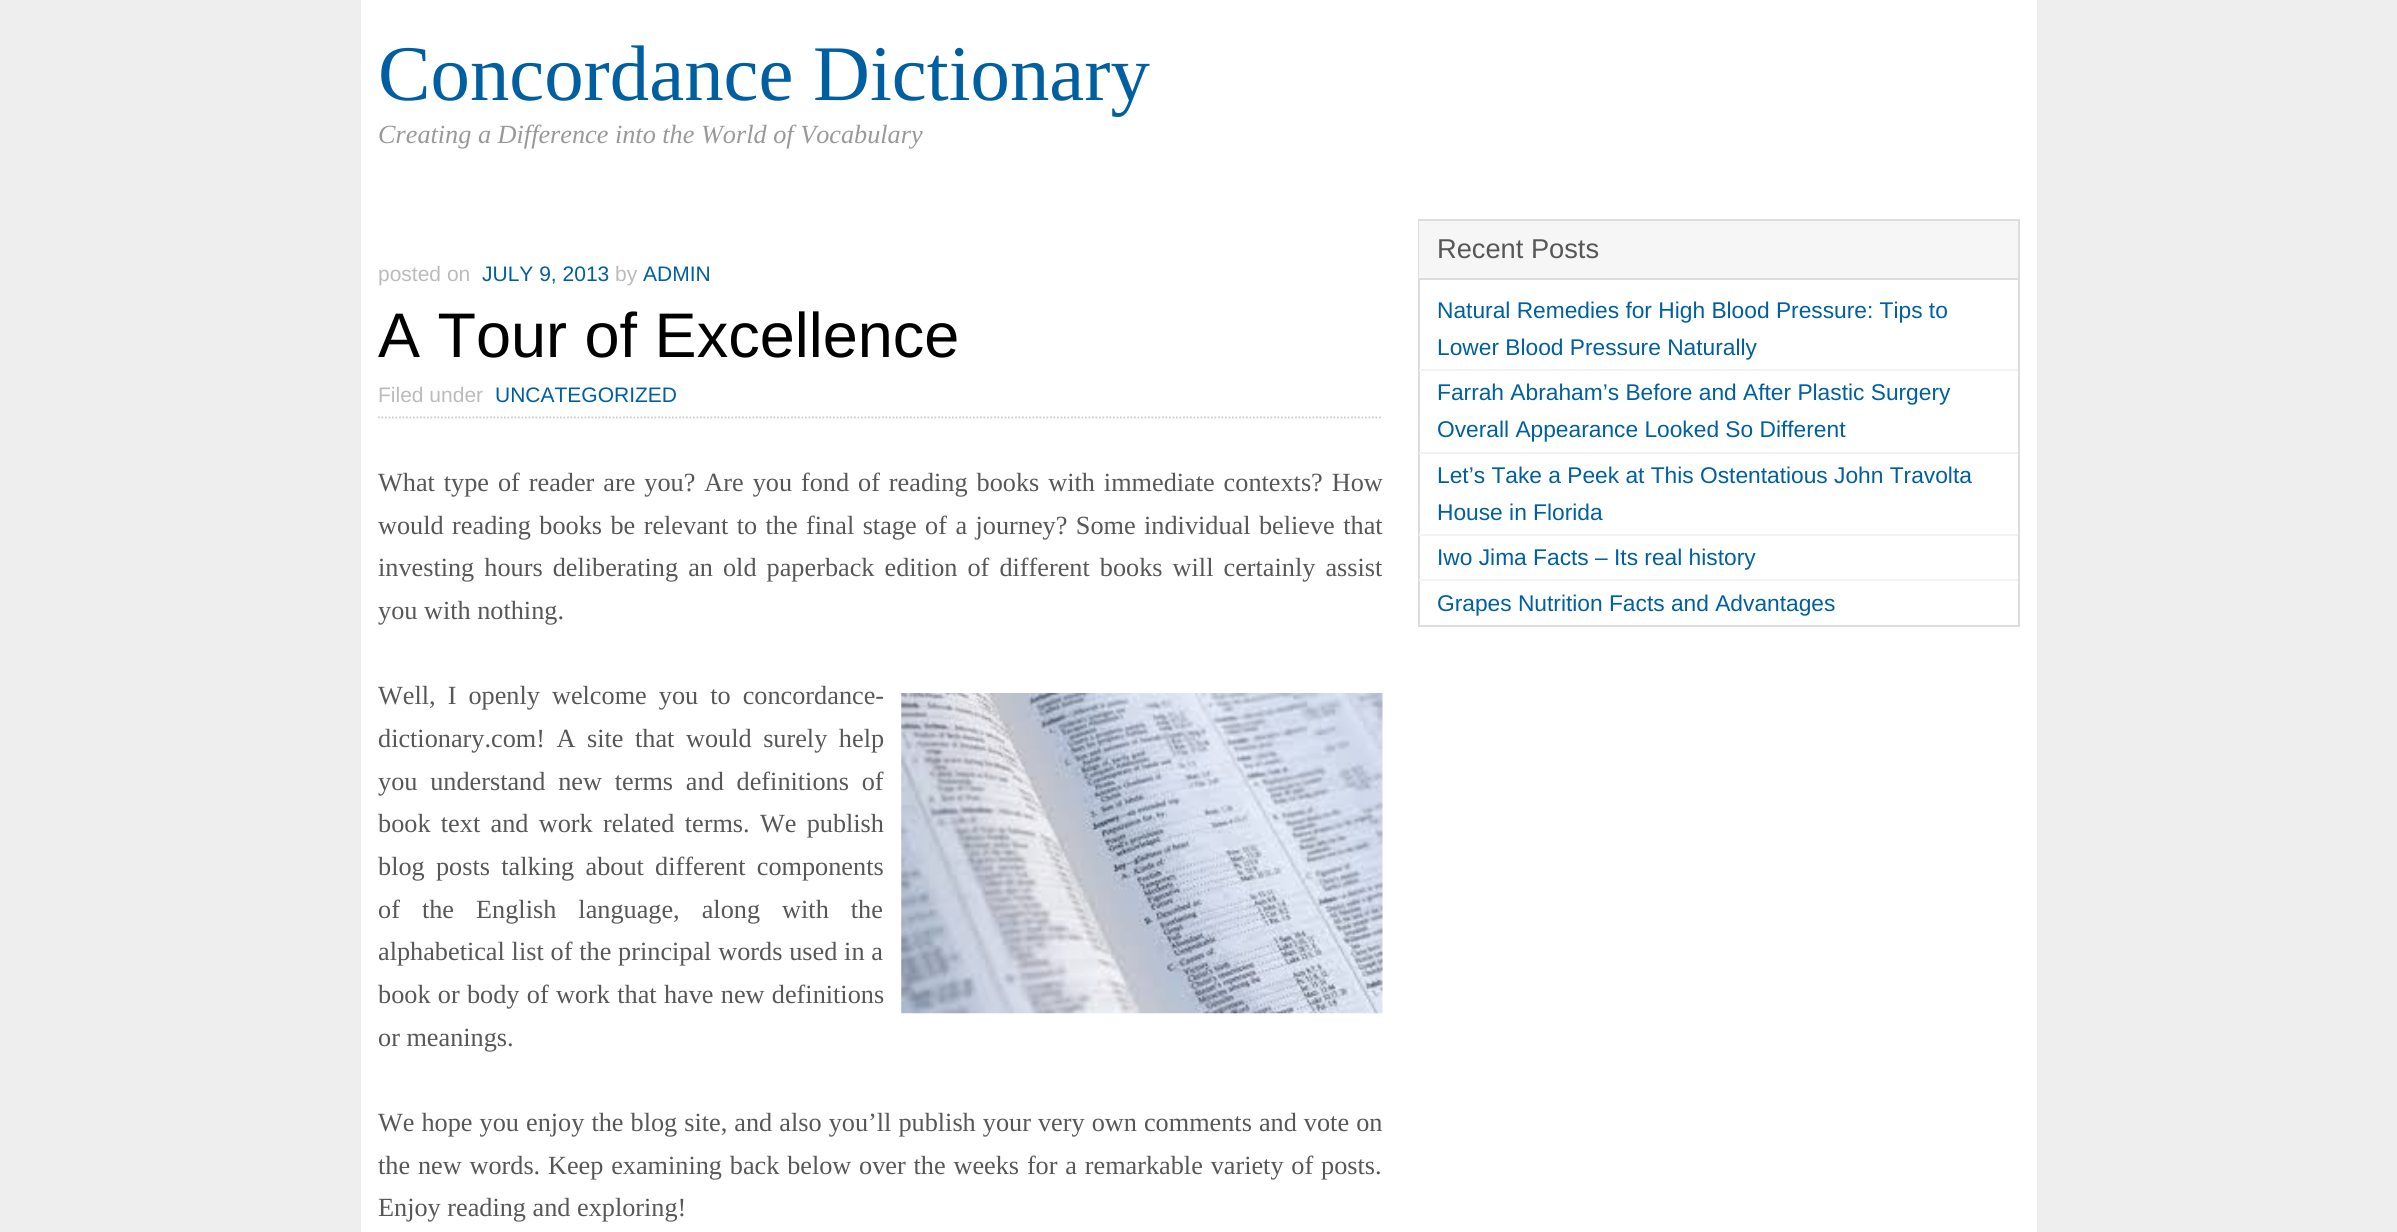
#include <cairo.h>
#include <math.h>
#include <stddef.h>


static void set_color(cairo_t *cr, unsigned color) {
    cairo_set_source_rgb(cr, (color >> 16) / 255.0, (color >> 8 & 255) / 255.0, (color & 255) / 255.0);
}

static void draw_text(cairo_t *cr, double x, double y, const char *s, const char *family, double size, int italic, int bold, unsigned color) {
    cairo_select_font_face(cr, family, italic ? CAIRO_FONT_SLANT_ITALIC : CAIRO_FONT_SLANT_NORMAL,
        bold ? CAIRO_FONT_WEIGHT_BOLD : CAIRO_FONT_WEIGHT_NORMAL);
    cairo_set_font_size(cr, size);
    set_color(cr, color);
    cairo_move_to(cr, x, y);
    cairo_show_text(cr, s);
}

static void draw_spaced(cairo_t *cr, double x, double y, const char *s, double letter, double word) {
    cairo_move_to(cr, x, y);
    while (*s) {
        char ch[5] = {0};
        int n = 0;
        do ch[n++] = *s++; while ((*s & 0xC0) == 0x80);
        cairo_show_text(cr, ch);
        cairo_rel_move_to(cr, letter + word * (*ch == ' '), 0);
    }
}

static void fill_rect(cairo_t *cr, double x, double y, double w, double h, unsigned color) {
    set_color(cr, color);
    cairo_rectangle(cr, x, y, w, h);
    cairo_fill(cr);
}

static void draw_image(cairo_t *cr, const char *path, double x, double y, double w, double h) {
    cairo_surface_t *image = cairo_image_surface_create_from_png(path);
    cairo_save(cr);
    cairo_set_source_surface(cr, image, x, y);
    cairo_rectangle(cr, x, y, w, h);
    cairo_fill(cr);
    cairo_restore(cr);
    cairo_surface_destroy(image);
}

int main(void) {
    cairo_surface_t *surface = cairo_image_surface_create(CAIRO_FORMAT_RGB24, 2397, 1232);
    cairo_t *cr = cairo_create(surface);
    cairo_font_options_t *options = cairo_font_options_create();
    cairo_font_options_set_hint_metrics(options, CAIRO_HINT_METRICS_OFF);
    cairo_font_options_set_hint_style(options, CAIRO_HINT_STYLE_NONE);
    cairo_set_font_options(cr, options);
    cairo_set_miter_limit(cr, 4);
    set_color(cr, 0xEEEEEE);
    cairo_paint(cr);
    fill_rect(cr, 361, 0, 1676, 1232, 0xFFFFFF);
    draw_text(cr, 378, 100, "Concordance Dictionary", "Liberation Serif", 78.75, 0, 0, 0x005FA1);
    draw_text(cr, 378, 143, "Creating a Difference into the World of Vocabulary", "Liberation Serif", 26.25, 1, 0, 0x999999);
    draw_text(cr, 378, 281, "posted on", "Liberation Sans", 21, 0, 0, 0xBBBBBB);
    draw_text(cr, 482, 281, "JULY 9, 2013", "Liberation Sans", 21, 0, 0, 0x005FA1);
    draw_text(cr, 615, 281, "by", "Liberation Sans", 21, 0, 0, 0xBBBBBB);
    draw_text(cr, 643, 281, "ADMIN", "Liberation Sans", 21, 0, 0, 0x005FA1);
    draw_text(cr, 378, 357, "A Tour of Excellence", "Liberation Sans", 63, 0, 0, 0x000000);
    cairo_new_path(cr);
    cairo_move_to(cr, 378, 417.5);
    cairo_line_to(cr, 1382.5, 417.5);
    set_color(cr, 0xCCCCCC);
    cairo_set_line_width(cr, 1.8);
    cairo_set_dash(cr, (double[]){1.75, 1.75}, 2, 0);
    cairo_stroke(cr);
    draw_text(cr, 378, 402, "Filed under", "Liberation Sans", 21, 0, 0, 0xBBBBBB);
    draw_text(cr, 495, 402, "UNCATEGORIZED", "Liberation Sans", 21, 0, 0, 0x005FA1);
    cairo_select_font_face(cr, "Liberation Serif", CAIRO_FONT_SLANT_NORMAL, CAIRO_FONT_WEIGHT_NORMAL);
    cairo_set_font_size(cr, 26.25);
    set_color(cr, 0x575757);
    draw_spaced(cr, 378, 491, "What type of reader are you? Are you fond of reading books with immediate contexts? How", 0, 2.4);
    draw_spaced(cr, 378, 534, "would reading books be relevant to the final stage of a journey? Some individual believe that", 0, 1.9);
    draw_spaced(cr, 378, 576, "investing hours deliberating an old paperback edition of different books will certainly assist", 0, 3.5);
    draw_text(cr, 378, 619, "you with nothing.", "Liberation Serif", 26.25, 0, 0, 0x575757);
    draw_spaced(cr, 378, 704, "Well, I openly welcome you to concordance-", 0, 5.5);
    draw_spaced(cr, 378, 747, "dictionary.com! A site that would surely help", 0, 5);
    draw_spaced(cr, 378, 790, "you understand new terms and definitions of", 0, 6.25);
    draw_spaced(cr, 378, 832, "book text and work related terms. We publish", 0, 3.75);
    draw_spaced(cr, 378, 875, "blog posts talking about different components", 0, 4.75);
    draw_spaced(cr, 378, 918, "of the English language, along with the", 0, 15.5);
    draw_spaced(cr, 378, 960, "alphabetical list of the principal words used in a", 0, 0.25);
    draw_spaced(cr, 378, 1003, "book or body of work that have new definitions", 0, 0.75);
    draw_text(cr, 378, 1046, "or meanings.", "Liberation Serif", 26.25, 0, 0, 0x575757);
    draw_image(cr, "assets/img1.png", 901, 693, 482, 321);
    draw_spaced(cr, 378, 1131, "We hope you enjoy the blog site, and also you’ll publish your very own comments and vote on", 0, 0.5);
    draw_spaced(cr, 378, 1174, "the new words. Keep examining back below over the weeks for a remarkable variety of posts.", 0, 1.25);
    draw_text(cr, 378, 1216, "Enjoy reading and exploring!", "Liberation Serif", 26.25, 0, 0, 0x575757);
    cairo_rectangle(cr, 1419, 220, 600, 406);
    set_color(cr, 0xDDDDDD);
    cairo_set_line_width(cr, 2);
    cairo_set_dash(cr, NULL, 0, 0);
    cairo_stroke(cr);
    fill_rect(cr, 1419, 221, 599, 57, 0xF6F6F6);
    fill_rect(cr, 1419, 278, 599, 2, 0xDDDDDD);
    draw_text(cr, 1437, 258, "Recent Posts", "Liberation Sans", 27.25, 0, 0, 0x575757);
    fill_rect(cr, 1419, 369, 599, 2, 0xF2F2F2);
    draw_text(cr, 1437, 318, "Natural Remedies for High Blood Pressure: Tips to", "Liberation Sans", 22.75, 0, 0, 0x005FA1);
    draw_text(cr, 1437, 355, "Lower Blood Pressure Naturally", "Liberation Sans", 22.75, 0, 0, 0x005FA1);
    fill_rect(cr, 1419, 452, 599, 2, 0xF2F2F2);
    draw_text(cr, 1437, 400, "Farrah Abraham’s Before and After Plastic Surgery", "Liberation Sans", 22.75, 0, 0, 0x005FA1);
    draw_text(cr, 1437, 437, "Overall Appearance Looked So Different", "Liberation Sans", 22.75, 0, 0, 0x005FA1);
    fill_rect(cr, 1419, 534, 599, 2, 0xF2F2F2);
    draw_text(cr, 1437, 483, "Let’s Take a Peek at This Ostentatious John Travolta", "Liberation Sans", 22.75, 0, 0, 0x005FA1);
    draw_text(cr, 1437, 520, "House in Florida", "Liberation Sans", 22.75, 0, 0, 0x005FA1);
    fill_rect(cr, 1419, 579, 599, 2, 0xF2F2F2);
    draw_text(cr, 1437, 565, "Iwo Jima Facts – Its real history", "Liberation Sans", 22.75, 0, 0, 0x005FA1);
    draw_text(cr, 1437, 611, "Grapes Nutrition Facts and Advantages", "Liberation Sans", 22.75, 0, 0, 0x005FA1);
    cairo_surface_write_to_png(surface, "output.png");
    cairo_font_options_destroy(options);
    cairo_destroy(cr);
    cairo_surface_destroy(surface);
    return 0;
}
